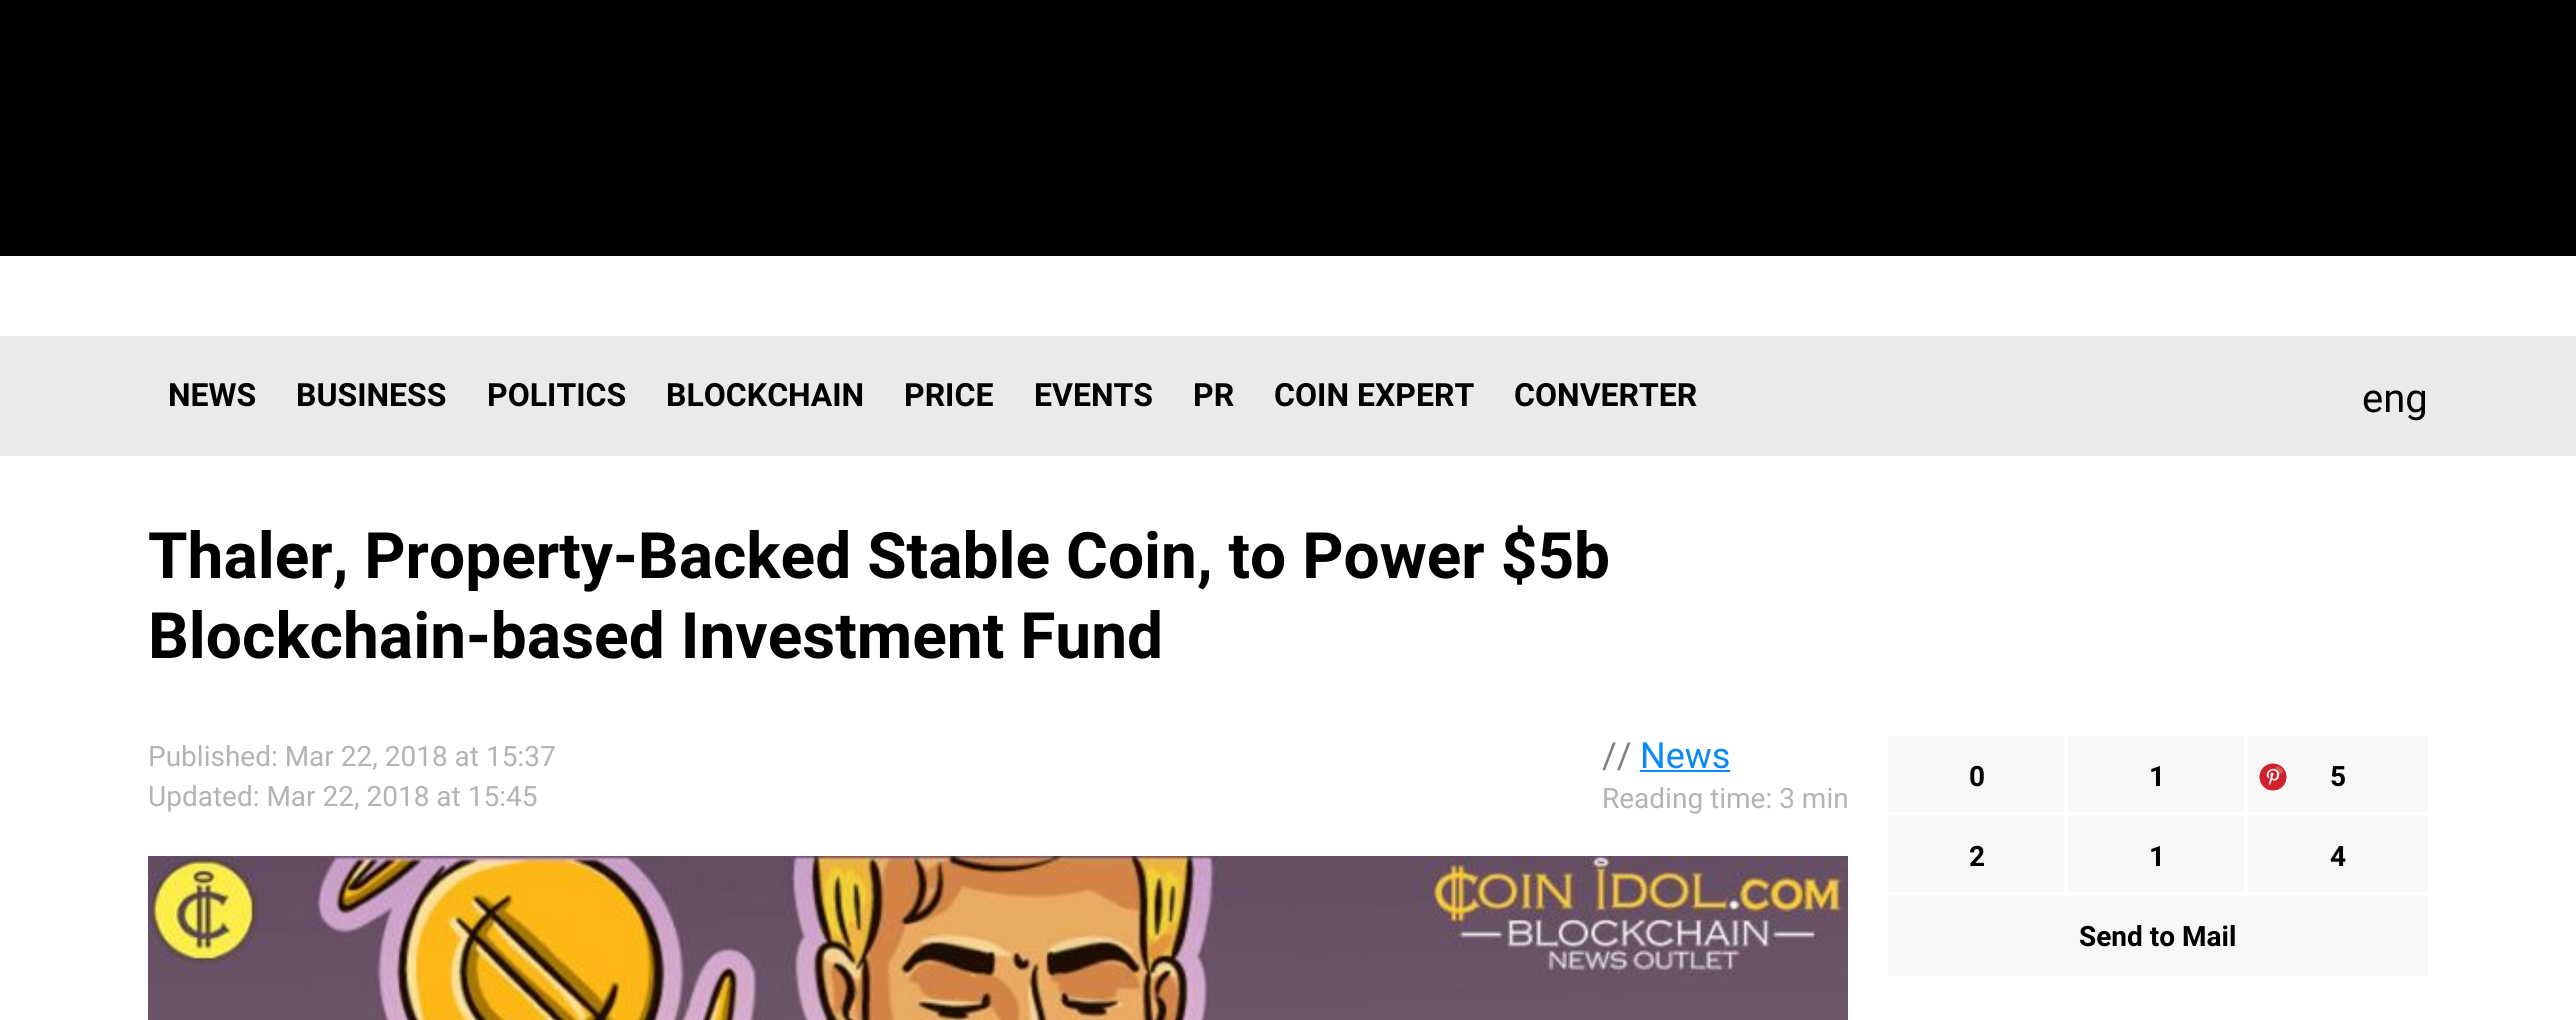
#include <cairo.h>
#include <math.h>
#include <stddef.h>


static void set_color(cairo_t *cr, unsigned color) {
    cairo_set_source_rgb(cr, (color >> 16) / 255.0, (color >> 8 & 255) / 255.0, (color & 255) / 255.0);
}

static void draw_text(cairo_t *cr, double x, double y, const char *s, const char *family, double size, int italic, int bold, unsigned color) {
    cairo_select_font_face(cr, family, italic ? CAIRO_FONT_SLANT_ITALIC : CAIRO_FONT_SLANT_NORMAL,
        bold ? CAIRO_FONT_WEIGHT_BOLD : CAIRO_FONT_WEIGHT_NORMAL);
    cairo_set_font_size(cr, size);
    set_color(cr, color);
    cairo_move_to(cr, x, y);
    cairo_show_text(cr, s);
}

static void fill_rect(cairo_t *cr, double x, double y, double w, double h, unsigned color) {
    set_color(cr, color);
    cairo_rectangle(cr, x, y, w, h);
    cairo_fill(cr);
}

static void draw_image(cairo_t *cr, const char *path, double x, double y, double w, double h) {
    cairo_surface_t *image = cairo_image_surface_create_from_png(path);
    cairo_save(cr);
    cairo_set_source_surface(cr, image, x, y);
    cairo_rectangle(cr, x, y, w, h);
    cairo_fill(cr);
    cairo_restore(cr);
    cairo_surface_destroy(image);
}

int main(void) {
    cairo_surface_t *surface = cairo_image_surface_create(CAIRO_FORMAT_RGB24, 2576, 1020);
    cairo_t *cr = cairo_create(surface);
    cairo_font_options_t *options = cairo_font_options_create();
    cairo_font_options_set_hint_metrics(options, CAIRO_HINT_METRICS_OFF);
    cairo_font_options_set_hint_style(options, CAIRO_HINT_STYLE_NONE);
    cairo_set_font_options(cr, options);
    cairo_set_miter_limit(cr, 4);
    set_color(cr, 0xFFFFFF);
    cairo_paint(cr);
    fill_rect(cr, 0, 0, 2576, 256, 0x000000);
    fill_rect(cr, 0, 336, 2576, 120, 0xEAEAEA);
    draw_text(cr, 168, 406, "NEWS", "Roboto", 32, 0, 1, 0x000000);
    draw_text(cr, 296, 406, "BUSINESS", "Roboto", 32, 0, 1, 0x000000);
    draw_text(cr, 487, 406, "POLITICS", "Roboto", 32, 0, 1, 0x000000);
    draw_text(cr, 666, 406, "BLOCKCHAIN", "Roboto", 32, 0, 1, 0x000000);
    draw_text(cr, 904, 406, "PRICE", "Roboto", 32, 0, 1, 0x000000);
    draw_text(cr, 1034, 406, "EVENTS", "Roboto", 32, 0, 1, 0x000000);
    draw_text(cr, 1193, 406, "PR", "Roboto", 32, 0, 1, 0x000000);
    draw_text(cr, 1274, 406, "COIN EXPERT", "Roboto", 32, 0, 1, 0x000000);
    draw_text(cr, 1514, 406, "CONVERTER", "Roboto", 32, 0, 1, 0x000000);
    draw_text(cr, 2362, 412, "eng", "Roboto", 40, 0, 0, 0x000000);
    draw_text(cr, 148, 578, "Thaler, Property-Backed Stable Coin, to Power $5b", "Roboto", 64, 0, 1, 0x000000);
    draw_text(cr, 148, 658, "Blockchain-based Investment Fund", "Roboto", 64, 0, 1, 0x000000);
    draw_text(cr, 148, 766, "Published: Mar 22, 2018 at 15:37", "Roboto", 28, 0, 0, 0xB3B3B3);
    draw_text(cr, 1602, 768, "//", "Roboto", 36, 0, 0, 0x808080);
    draw_text(cr, 1640, 768, "News", "Roboto", 36, 0, 0, 0x0988FB);
    fill_rect(cr, 1640, 770, 90, 2, 0x0988FB);
    draw_text(cr, 1602, 808, "Reading time: 3 min", "Roboto", 28, 0, 0, 0xB3B3B3);
    draw_text(cr, 148, 806, "Updated: Mar 22, 2018 at 15:45", "Roboto", 28, 0, 0, 0xB3B3B3);
    draw_image(cr, "assets/img1.png", 148, 856, 1700, 164);
    fill_rect(cr, 1888, 736, 176, 76, 0xF7F7F7);
    draw_text(cr, 1969, 786, "0", "Roboto", 28, 0, 1, 0x000000);
    fill_rect(cr, 2068, 736, 176, 76, 0xF7F7F7);
    draw_text(cr, 2149, 786, "1", "Roboto", 28, 0, 1, 0x000000);
    fill_rect(cr, 2248, 736, 180, 76, 0xF7F7F7);
    draw_image(cr, "assets/img2.png", 2259, 763, 28, 28);
    draw_text(cr, 2330, 786, "5", "Roboto", 28, 0, 1, 0x000000);
    fill_rect(cr, 1888, 816, 176, 76, 0xF7F7F7);
    draw_text(cr, 1969, 866, "2", "Roboto", 28, 0, 1, 0x000000);
    fill_rect(cr, 2068, 816, 176, 76, 0xF7F7F7);
    draw_text(cr, 2149, 866, "1", "Roboto", 28, 0, 1, 0x000000);
    fill_rect(cr, 2248, 816, 180, 76, 0xF7F7F7);
    draw_text(cr, 2330, 866, "4", "Roboto", 28, 0, 1, 0x000000);
    fill_rect(cr, 1888, 896, 540, 80, 0xF7F7F7);
    draw_text(cr, 2079, 946, "Send to Mail", "Roboto", 28, 0, 1, 0x000000);
    cairo_surface_write_to_png(surface, "output.png");
    cairo_font_options_destroy(options);
    cairo_destroy(cr);
    cairo_surface_destroy(surface);
    return 0;
}
